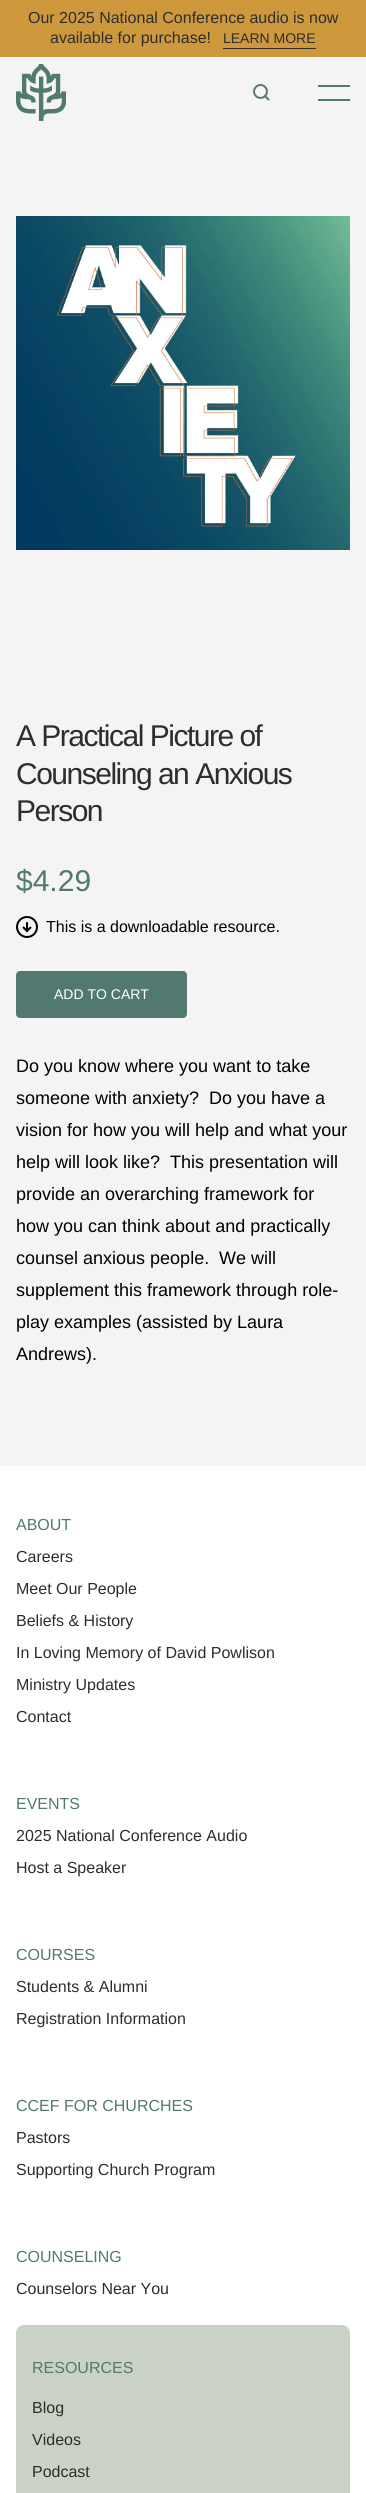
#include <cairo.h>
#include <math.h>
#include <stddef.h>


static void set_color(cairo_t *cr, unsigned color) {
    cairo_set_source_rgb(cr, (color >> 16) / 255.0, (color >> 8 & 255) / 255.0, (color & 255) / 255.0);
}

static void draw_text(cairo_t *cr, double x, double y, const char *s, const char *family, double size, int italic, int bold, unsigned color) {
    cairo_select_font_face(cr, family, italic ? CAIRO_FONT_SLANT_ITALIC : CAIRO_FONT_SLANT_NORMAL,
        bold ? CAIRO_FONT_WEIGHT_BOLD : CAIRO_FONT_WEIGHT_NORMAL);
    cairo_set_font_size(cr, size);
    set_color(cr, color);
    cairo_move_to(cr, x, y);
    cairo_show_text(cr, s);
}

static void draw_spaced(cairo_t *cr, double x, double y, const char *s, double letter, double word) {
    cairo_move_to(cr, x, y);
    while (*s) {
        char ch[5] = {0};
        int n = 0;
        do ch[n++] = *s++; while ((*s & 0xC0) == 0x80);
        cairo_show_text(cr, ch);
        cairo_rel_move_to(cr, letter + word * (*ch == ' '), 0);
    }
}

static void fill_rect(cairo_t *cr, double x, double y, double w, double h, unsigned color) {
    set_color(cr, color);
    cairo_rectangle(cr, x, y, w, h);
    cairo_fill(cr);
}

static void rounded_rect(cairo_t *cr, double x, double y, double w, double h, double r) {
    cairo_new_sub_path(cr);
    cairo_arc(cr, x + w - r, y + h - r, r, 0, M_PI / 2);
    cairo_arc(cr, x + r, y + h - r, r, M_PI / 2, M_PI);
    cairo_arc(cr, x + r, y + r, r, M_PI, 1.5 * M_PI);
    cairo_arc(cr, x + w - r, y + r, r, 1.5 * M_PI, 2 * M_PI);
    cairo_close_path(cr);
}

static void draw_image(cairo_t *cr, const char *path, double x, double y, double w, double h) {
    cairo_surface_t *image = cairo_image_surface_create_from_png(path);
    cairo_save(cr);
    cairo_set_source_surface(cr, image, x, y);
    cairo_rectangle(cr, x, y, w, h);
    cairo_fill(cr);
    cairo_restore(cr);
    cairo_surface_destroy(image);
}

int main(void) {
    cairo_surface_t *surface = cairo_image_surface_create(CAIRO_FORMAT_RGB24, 366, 2493);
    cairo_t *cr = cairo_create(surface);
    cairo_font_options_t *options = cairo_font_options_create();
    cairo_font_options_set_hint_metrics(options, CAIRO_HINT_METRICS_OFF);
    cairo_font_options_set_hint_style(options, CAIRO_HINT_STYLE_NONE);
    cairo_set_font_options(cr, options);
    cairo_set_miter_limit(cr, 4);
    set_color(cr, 0xFFFFFF);
    cairo_paint(cr);
    fill_rect(cr, 0, 0, 366, 57, 0xCE993C);
    draw_text(cr, 28, 23, "Our 2025 National Conference audio is now", "Liberation Sans", 16, 0, 0, 0x2D2D2D);
    draw_text(cr, 50, 43, "available for purchase!", "Liberation Sans", 16, 0, 0, 0x2D2D2D);
    fill_rect(cr, 223, 48, 93, 1, 0x2D2D2D);
    draw_text(cr, 223, 43, "LEARN MORE", "Liberation Sans", 14, 0, 0, 0x2D2D2D);
    fill_rect(cr, 0, 57, 366, 1409, 0xF4F4F4);
    draw_image(cr, "assets/img1.png", 16, 64, 50, 57);
    draw_image(cr, "assets/img2.png", 253, 84, 17, 17);
    fill_rect(cr, 318, 85, 32, 2, 0x52796F);
    fill_rect(cr, 318, 99, 32, 2, 0x52796F);
    draw_image(cr, "assets/img3.png", 16, 216, 334, 334);
    cairo_set_font_size(cr, 30);
    set_color(cr, 0x2D2D2D);
    draw_spaced(cr, 16, 746, "A Practical Picture of", -1.5, 0);
    draw_spaced(cr, 16, 784, "Counseling an Anxious", -1.5, 0);
    draw_spaced(cr, 16, 821, "Person", -1.5, 0);
    draw_text(cr, 16, 891, "$4.29", "Liberation Sans", 30, 0, 0, 0x52796F);
    draw_image(cr, "assets/img4.png", 16, 916, 22, 22);
    draw_text(cr, 46, 932, "This is a downloadable resource.", "Liberation Sans", 16, 0, 0, 0x000000);
    set_color(cr, 0x52796F);
    rounded_rect(cr, 17, 972, 169, 45, 3);
    cairo_fill_preserve(cr);
    cairo_stroke(cr);
    draw_text(cr, 54, 999, "ADD TO CART", "Liberation Sans", 14, 0, 0, 0xFFFFFF);
    draw_text(cr, 16, 1072, "Do you know where you want to take", "Liberation Sans", 18, 0, 0, 0x000000);
    draw_text(cr, 16, 1104, "someone with anxiety?", "Liberation Sans", 18, 0, 0, 0x000000);
    draw_text(cr, 209, 1104, "Do you have a", "Liberation Sans", 18, 0, 0, 0x000000);
    draw_text(cr, 16, 1136, "vision for how you will help and what your", "Liberation Sans", 18, 0, 0, 0x000000);
    draw_text(cr, 16, 1168, "help will look like?", "Liberation Sans", 18, 0, 0, 0x000000);
    draw_text(cr, 170, 1168, "This presentation will", "Liberation Sans", 18, 0, 0, 0x000000);
    draw_text(cr, 16, 1200, "provide an overarching framework for", "Liberation Sans", 18, 0, 0, 0x000000);
    draw_text(cr, 16, 1232, "how you can think about and practically", "Liberation Sans", 18, 0, 0, 0x000000);
    draw_text(cr, 16, 1264, "counsel anxious people.", "Liberation Sans", 18, 0, 0, 0x000000);
    draw_text(cr, 219, 1264, "We will", "Liberation Sans", 18, 0, 0, 0x000000);
    draw_text(cr, 16, 1296, "supplement this framework through role-", "Liberation Sans", 18, 0, 0, 0x000000);
    draw_text(cr, 16, 1328, "play examples (assisted by Laura", "Liberation Sans", 18, 0, 0, 0x000000);
    draw_text(cr, 16, 1360, "Andrews).", "Liberation Sans", 18, 0, 0, 0x000000);
    draw_text(cr, 16, 1530, "ABOUT", "Liberation Sans", 16, 0, 0, 0x52796F);
    draw_text(cr, 16, 1562, "Careers", "Liberation Sans", 16, 0, 0, 0x2D2D2D);
    draw_text(cr, 16, 1594, "Meet Our People", "Liberation Sans", 16, 0, 0, 0x2D2D2D);
    draw_text(cr, 16, 1626, "Beliefs & History", "Liberation Sans", 16, 0, 0, 0x2D2D2D);
    draw_text(cr, 16, 1658, "In Loving Memory of David Powlison", "Liberation Sans", 16, 0, 0, 0x2D2D2D);
    draw_text(cr, 16, 1690, "Ministry Updates", "Liberation Sans", 16, 0, 0, 0x2D2D2D);
    draw_text(cr, 16, 1722, "Contact", "Liberation Sans", 16, 0, 0, 0x2D2D2D);
    draw_text(cr, 16, 1809, "EVENTS", "Liberation Sans", 16, 0, 0, 0x52796F);
    draw_text(cr, 16, 1841, "2025 National Conference Audio", "Liberation Sans", 16, 0, 0, 0x2D2D2D);
    draw_text(cr, 16, 1873, "Host a Speaker", "Liberation Sans", 16, 0, 0, 0x2D2D2D);
    draw_text(cr, 16, 1960, "COURSES", "Liberation Sans", 16, 0, 0, 0x52796F);
    draw_text(cr, 16, 1992, "Students & Alumni", "Liberation Sans", 16, 0, 0, 0x2D2D2D);
    draw_text(cr, 16, 2024, "Registration Information", "Liberation Sans", 16, 0, 0, 0x2D2D2D);
    draw_text(cr, 16, 2111, "CCEF FOR CHURCHES", "Liberation Sans", 16, 0, 0, 0x52796F);
    draw_text(cr, 16, 2143, "Pastors", "Liberation Sans", 16, 0, 0, 0x2D2D2D);
    draw_text(cr, 16, 2175, "Supporting Church Program", "Liberation Sans", 16, 0, 0, 0x2D2D2D);
    draw_text(cr, 16, 2262, "COUNSELING", "Liberation Sans", 16, 0, 0, 0x52796F);
    draw_text(cr, 16, 2294, "Counselors Near You", "Liberation Sans", 16, 0, 0, 0x2D2D2D);
    set_color(cr, 0xCAD2C5);
    rounded_rect(cr, 16, 2325, 334, 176, 8);
    cairo_fill(cr);
    draw_text(cr, 32, 2373, "RESOURCES", "Liberation Sans", 16, 0, 0, 0x52796F);
    draw_text(cr, 32, 2413, "Blog", "Liberation Sans", 16, 0, 0, 0x2D2D2D);
    draw_text(cr, 32, 2445, "Videos", "Liberation Sans", 16, 0, 0, 0x2D2D2D);
    draw_text(cr, 32, 2477, "Podcast", "Liberation Sans", 16, 0, 0, 0x2D2D2D);
    cairo_surface_write_to_png(surface, "output.png");
    cairo_font_options_destroy(options);
    cairo_destroy(cr);
    cairo_surface_destroy(surface);
    return 0;
}
